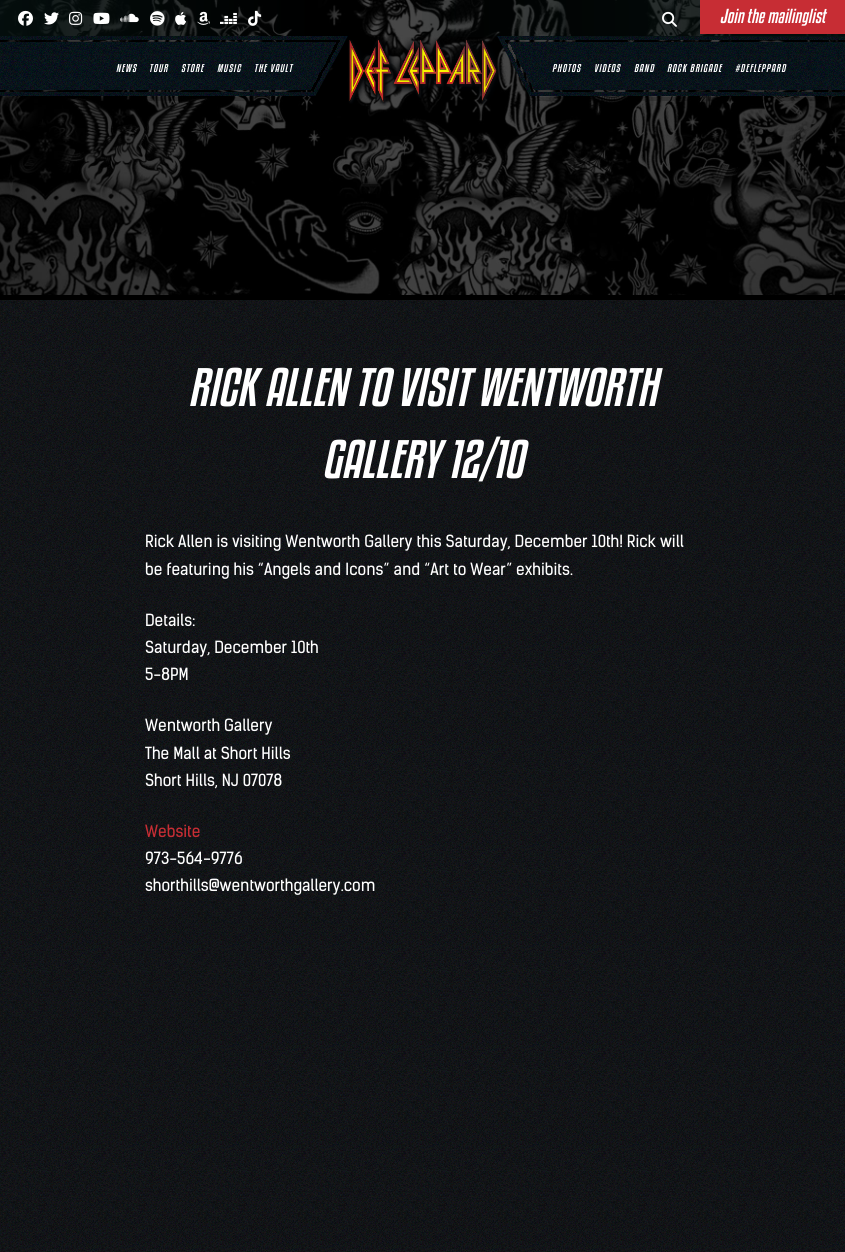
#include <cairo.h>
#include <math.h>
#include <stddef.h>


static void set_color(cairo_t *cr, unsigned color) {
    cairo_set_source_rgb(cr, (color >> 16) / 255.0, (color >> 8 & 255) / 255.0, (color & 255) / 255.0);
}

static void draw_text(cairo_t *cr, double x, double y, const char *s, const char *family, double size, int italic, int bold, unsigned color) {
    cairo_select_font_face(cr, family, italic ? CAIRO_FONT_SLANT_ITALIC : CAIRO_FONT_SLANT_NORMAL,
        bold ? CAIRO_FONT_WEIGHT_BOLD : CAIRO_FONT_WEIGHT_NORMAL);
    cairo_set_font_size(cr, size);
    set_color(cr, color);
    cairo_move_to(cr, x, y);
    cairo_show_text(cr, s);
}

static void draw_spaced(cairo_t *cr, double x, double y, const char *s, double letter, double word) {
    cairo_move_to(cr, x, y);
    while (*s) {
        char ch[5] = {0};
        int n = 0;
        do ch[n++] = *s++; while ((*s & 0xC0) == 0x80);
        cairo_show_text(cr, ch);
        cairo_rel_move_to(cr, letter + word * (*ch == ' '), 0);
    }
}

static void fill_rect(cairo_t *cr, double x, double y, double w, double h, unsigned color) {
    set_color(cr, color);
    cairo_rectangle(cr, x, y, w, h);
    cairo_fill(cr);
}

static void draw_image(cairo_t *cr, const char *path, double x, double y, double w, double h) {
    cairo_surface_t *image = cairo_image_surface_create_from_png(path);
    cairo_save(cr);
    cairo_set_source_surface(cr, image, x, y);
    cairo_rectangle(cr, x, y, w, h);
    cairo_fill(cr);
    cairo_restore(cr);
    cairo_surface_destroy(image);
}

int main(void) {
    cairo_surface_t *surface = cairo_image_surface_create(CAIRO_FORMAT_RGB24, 845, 1252);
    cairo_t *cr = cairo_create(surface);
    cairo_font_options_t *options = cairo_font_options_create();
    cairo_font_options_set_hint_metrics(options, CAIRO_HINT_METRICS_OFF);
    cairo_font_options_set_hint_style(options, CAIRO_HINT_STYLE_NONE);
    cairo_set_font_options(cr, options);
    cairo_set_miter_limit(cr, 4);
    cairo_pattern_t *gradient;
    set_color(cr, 0xFFFFFF);
    cairo_paint(cr);
    draw_image(cr, "assets/img1.png", 0, 300, 845, 952);
    draw_image(cr, "assets/img18.png", 0, 0, 845, 295);
    draw_image(cr, "assets/img2.png", 18, 10, 15, 16);
    draw_image(cr, "assets/img3.png", 44, 12, 15, 13);
    draw_image(cr, "assets/img4.png", 69, 11, 14, 14);
    draw_image(cr, "assets/img5.png", 93, 12, 17, 12);
    draw_image(cr, "assets/img6.png", 120, 13, 19, 10);
    draw_image(cr, "assets/img7.png", 150, 11, 15, 15);
    draw_image(cr, "assets/img8.png", 175, 11, 12, 14);
    draw_image(cr, "assets/img9.png", 197, 11, 13, 14);
    draw_image(cr, "assets/img10.png", 220, 12, 17, 12);
    draw_image(cr, "assets/img11.png", 248, 10, 14, 16);
    draw_image(cr, "assets/img16.png", 497, 36, 50, 65);
    draw_image(cr, "assets/img17.png", 547, 36, 298, 65);
    gradient = cairo_pattern_create_linear(352, 19, 845, 18);
    cairo_pattern_add_color_stop_rgba(gradient, 0.1, 0.02, 0.067, 0.063, 0);
    cairo_pattern_add_color_stop_rgba(gradient, 1, 0.02, 0.067, 0.063, 0.79);
    cairo_set_source(cr, gradient);
    cairo_pattern_destroy(gradient);
    cairo_rectangle(cr, 422, 0, 423, 37);
    cairo_fill(cr);
    draw_image(cr, "assets/img12.png", 662, 11, 15, 16);
    fill_rect(cr, 700, 0, 145, 34, 0xC72D34);
    draw_text(cr, 720, 23, "Join the mailinglist", "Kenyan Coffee", 18, 1, 0, 0xFFFFFF);
    draw_image(cr, "assets/img13.png", 348, 37, 156, 69);
    draw_image(cr, "assets/img14.png", 298, 36, 50, 65);
    draw_image(cr, "assets/img15.png", 0, 36, 298, 65);
    cairo_set_font_size(cr, 10);
    draw_spaced(cr, 116, 72, "NEWS", 1, 0);
    draw_spaced(cr, 149, 72, "TOUR", 1, 0);
    draw_spaced(cr, 181, 72, "STORE", 1, 0);
    draw_spaced(cr, 217, 72, "MUSIC", 1, 0);
    draw_spaced(cr, 254, 72, "THE VAULT", 1, 0);
    draw_spaced(cr, 552, 72, "PHOTOS", 1, 0);
    draw_spaced(cr, 594, 72, "VIDEOS", 1, 0);
    draw_spaced(cr, 634, 72, "BAND", 1, 0);
    draw_spaced(cr, 667, 72, "ROCK BRIGADE", 1, 0);
    draw_spaced(cr, 735, 72, "#DEFLEPPARD", 1, 0);
    fill_rect(cr, 0, 295, 845, 5, 0x000000);
    draw_text(cr, 188, 406, "RICK ALLEN TO VISIT WENTWORTH", "Kenyan Coffee", 48, 1, 0, 0xFFFFFF);
    draw_text(cr, 322, 478, "GALLERY 12/10", "Kenyan Coffee", 48, 1, 0, 0xFFFFFF);
    draw_text(cr, 145, 547, "Rick Allen is visiting Wentworth Gallery this Saturday, December 10th! Rick will", "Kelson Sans", 16, 0, 0, 0xFFFFFF);
    draw_text(cr, 145, 575, "be featuring his “Angels and Icons” and “Art to Wear” exhibits.", "Kelson Sans", 16, 0, 0, 0xFFFFFF);
    draw_text(cr, 145, 626, "Details:", "Kelson Sans", 16, 0, 0, 0xFFFFFF);
    draw_text(cr, 145, 653, "Saturday, December 10th", "Kelson Sans", 16, 0, 0, 0xFFFFFF);
    draw_text(cr, 145, 680, "5-8PM", "Kelson Sans", 16, 0, 0, 0xFFFFFF);
    draw_text(cr, 145, 731, "Wentworth Gallery", "Kelson Sans", 16, 0, 0, 0xFFFFFF);
    draw_text(cr, 145, 759, "The Mall at Short Hills", "Kelson Sans", 16, 0, 0, 0xFFFFFF);
    draw_text(cr, 145, 786, "Short Hills, NJ 07078", "Kelson Sans", 16, 0, 0, 0xFFFFFF);
    draw_text(cr, 145, 837, "Website", "Kelson Sans", 16, 0, 0, 0xC72D34);
    draw_text(cr, 145, 864, "973-564-9776", "Kelson Sans", 16, 0, 0, 0xFFFFFF);
    draw_text(cr, 145, 891, "shorthills@wentworthgallery.com", "Kelson Sans", 16, 0, 0, 0xFFFFFF);
    cairo_surface_write_to_png(surface, "output.png");
    cairo_font_options_destroy(options);
    cairo_destroy(cr);
    cairo_surface_destroy(surface);
    return 0;
}
